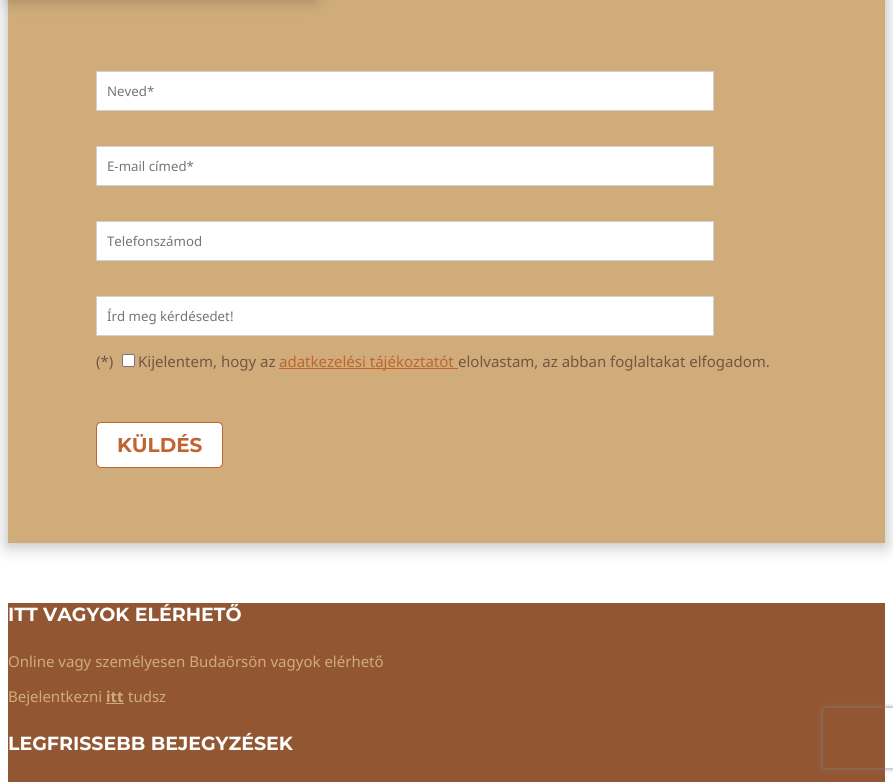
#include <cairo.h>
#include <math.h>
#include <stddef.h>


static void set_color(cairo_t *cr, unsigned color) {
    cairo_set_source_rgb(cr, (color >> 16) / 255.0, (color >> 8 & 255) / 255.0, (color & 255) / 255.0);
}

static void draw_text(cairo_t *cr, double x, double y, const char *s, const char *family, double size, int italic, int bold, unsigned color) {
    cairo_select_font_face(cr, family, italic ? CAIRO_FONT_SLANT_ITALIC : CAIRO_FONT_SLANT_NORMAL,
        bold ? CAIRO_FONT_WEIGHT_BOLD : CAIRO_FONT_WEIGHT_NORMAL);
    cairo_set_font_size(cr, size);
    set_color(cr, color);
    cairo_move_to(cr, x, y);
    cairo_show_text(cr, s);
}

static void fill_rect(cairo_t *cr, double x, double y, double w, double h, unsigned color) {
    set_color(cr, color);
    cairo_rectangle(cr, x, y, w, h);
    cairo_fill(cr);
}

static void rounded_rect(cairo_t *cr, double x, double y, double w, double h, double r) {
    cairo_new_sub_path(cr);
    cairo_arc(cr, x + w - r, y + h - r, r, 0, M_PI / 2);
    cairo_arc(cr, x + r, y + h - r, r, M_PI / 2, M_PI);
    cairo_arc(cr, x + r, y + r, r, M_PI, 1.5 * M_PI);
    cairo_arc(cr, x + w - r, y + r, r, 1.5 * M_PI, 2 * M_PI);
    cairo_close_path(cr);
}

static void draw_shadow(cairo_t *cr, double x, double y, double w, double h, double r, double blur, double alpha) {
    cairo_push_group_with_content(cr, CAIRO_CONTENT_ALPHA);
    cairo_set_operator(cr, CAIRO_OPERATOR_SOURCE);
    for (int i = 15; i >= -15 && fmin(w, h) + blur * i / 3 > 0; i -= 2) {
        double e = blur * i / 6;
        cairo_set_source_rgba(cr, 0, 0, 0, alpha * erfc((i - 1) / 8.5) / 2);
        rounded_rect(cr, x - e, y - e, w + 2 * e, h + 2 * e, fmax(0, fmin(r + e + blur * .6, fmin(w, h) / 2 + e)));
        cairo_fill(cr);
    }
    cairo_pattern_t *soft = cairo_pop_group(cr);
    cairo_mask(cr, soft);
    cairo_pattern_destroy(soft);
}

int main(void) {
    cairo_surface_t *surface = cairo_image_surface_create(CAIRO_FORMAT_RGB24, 893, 782);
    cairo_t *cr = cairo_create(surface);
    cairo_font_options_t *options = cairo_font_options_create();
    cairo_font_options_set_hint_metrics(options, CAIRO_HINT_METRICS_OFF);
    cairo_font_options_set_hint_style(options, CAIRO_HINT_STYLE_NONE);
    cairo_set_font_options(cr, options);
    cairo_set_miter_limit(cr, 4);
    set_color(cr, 0xFFFFFF);
    cairo_paint(cr);
    set_color(cr, 0x000000);
    draw_shadow(cr, 8, -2, 877, 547, 0, 9, 0.3);
    fill_rect(cr, 8, 0, 877, 543, 0xD0AC7A);
    set_color(cr, 0x000000);
    draw_shadow(cr, 8, -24, 306, 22, 0, 9, 0.3);
    set_color(cr, 0xFFFFFF);
    cairo_rectangle(cr, 96.5, 71.5, 617, 39);
    cairo_fill_preserve(cr);
    set_color(cr, 0xD1D1D1);
    cairo_set_line_width(cr, 1);
    cairo_stroke(cr);
    draw_text(cr, 107, 96, "Neved*", "Noto Sans", 13.25, 0, 0, 0x757575);
    set_color(cr, 0xFFFFFF);
    cairo_rectangle(cr, 96.5, 146.5, 617, 39);
    cairo_fill_preserve(cr);
    set_color(cr, 0xD1D1D1);
    cairo_stroke(cr);
    draw_text(cr, 107, 171, "E-mail címed*", "Noto Sans", 13.25, 0, 0, 0x757575);
    set_color(cr, 0xFFFFFF);
    cairo_rectangle(cr, 96.5, 221.5, 617, 39);
    cairo_fill_preserve(cr);
    set_color(cr, 0xD1D1D1);
    cairo_stroke(cr);
    draw_text(cr, 107, 246, "Telefonszámod", "Noto Sans", 13.25, 0, 0, 0x757575);
    set_color(cr, 0xFFFFFF);
    cairo_rectangle(cr, 96.5, 296.5, 617, 39);
    cairo_fill_preserve(cr);
    set_color(cr, 0xD1D1D1);
    cairo_stroke(cr);
    draw_text(cr, 107, 321, "Írd meg kérdésedet!", "Noto Sans", 13.25, 0, 0, 0x757575);
    draw_text(cr, 96, 367, "(*)", "Noto Sans", 15, 0, 0, 0x795243);
    set_color(cr, 0xFFFFFF);
    rounded_rect(cr, 122.5, 354.5, 12, 12, 1.5);
    cairo_fill_preserve(cr);
    set_color(cr, 0x767676);
    cairo_stroke(cr);
    draw_text(cr, 138, 367, "Kijelentem, hogy az", "Noto Sans", 15, 0, 0, 0x795243);
    fill_rect(cr, 279, 368, 179, 1, 0xC06431);
    draw_text(cr, 279, 367, "adatkezelési tájékoztatót", "Noto Sans", 15, 0, 0, 0xC06431);
    draw_text(cr, 458, 367, "elolvastam, az abban foglaltakat elfogadom.", "Noto Sans", 15, 0, 0, 0x795243);
    set_color(cr, 0xFFFFFF);
    rounded_rect(cr, 96.5, 422.5, 126, 45, 4.5);
    cairo_fill_preserve(cr);
    set_color(cr, 0xC06431);
    cairo_stroke(cr);
    draw_text(cr, 117, 452, "KÜLDÉS", "Montserrat", 20, 0, 1, 0xC06431);
    fill_rect(cr, 8, 603, 877, 179, 0x925632);
    draw_text(cr, 8, 621, "ITT VAGYOK ELÉRHETŐ", "Montserrat", 19, 0, 1, 0xFFFFFF);
    draw_text(cr, 8, 667, "Online vagy személyesen Budaörsön vagyok elérhető", "Noto Sans", 15, 0, 0, 0xD0AC7A);
    draw_text(cr, 8, 702, "Bejelentkezni", "Noto Sans", 15, 0, 0, 0xD0AC7A);
    draw_text(cr, 106, 702, "itt", "Noto Sans", 15, 0, 1, 0xD0AC7A);
    fill_rect(cr, 106, 703, 18, 1, 0xD0AC7A);
    draw_text(cr, 128, 702, "tudsz", "Noto Sans", 15, 0, 0, 0xD0AC7A);
    draw_text(cr, 8, 750, "LEGFRISSEBB BEJEGYZÉSEK", "Montserrat", 19, 0, 1, 0xFFFFFF);
    cairo_save(cr);
    cairo_set_fill_rule(cr, CAIRO_FILL_RULE_EVEN_ODD);
    cairo_new_path(cr);
    cairo_move_to(cr, 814, 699);
    cairo_line_to(cr, 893, 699);
    cairo_line_to(cr, 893, 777);
    cairo_line_to(cr, 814, 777);
    cairo_close_path(cr);
    cairo_move_to(cr, 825, 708);
    cairo_line_to(cr, 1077, 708);
    cairo_curve_to(cr, 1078, 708, 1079, 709, 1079, 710);
    cairo_line_to(cr, 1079, 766);
    cairo_curve_to(cr, 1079, 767, 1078, 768, 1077, 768);
    cairo_line_to(cr, 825, 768);
    cairo_curve_to(cr, 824, 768, 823, 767, 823, 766);
    cairo_line_to(cr, 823, 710);
    cairo_curve_to(cr, 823, 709, 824, 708, 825, 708);
    cairo_close_path(cr);
    cairo_clip(cr);
    set_color(cr, 0x808080);
    draw_shadow(cr, 823, 708, 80, 60, 2, 2.5, 1);
    cairo_restore(cr);
    cairo_surface_write_to_png(surface, "output.png");
    cairo_font_options_destroy(options);
    cairo_destroy(cr);
    cairo_surface_destroy(surface);
    return 0;
}
